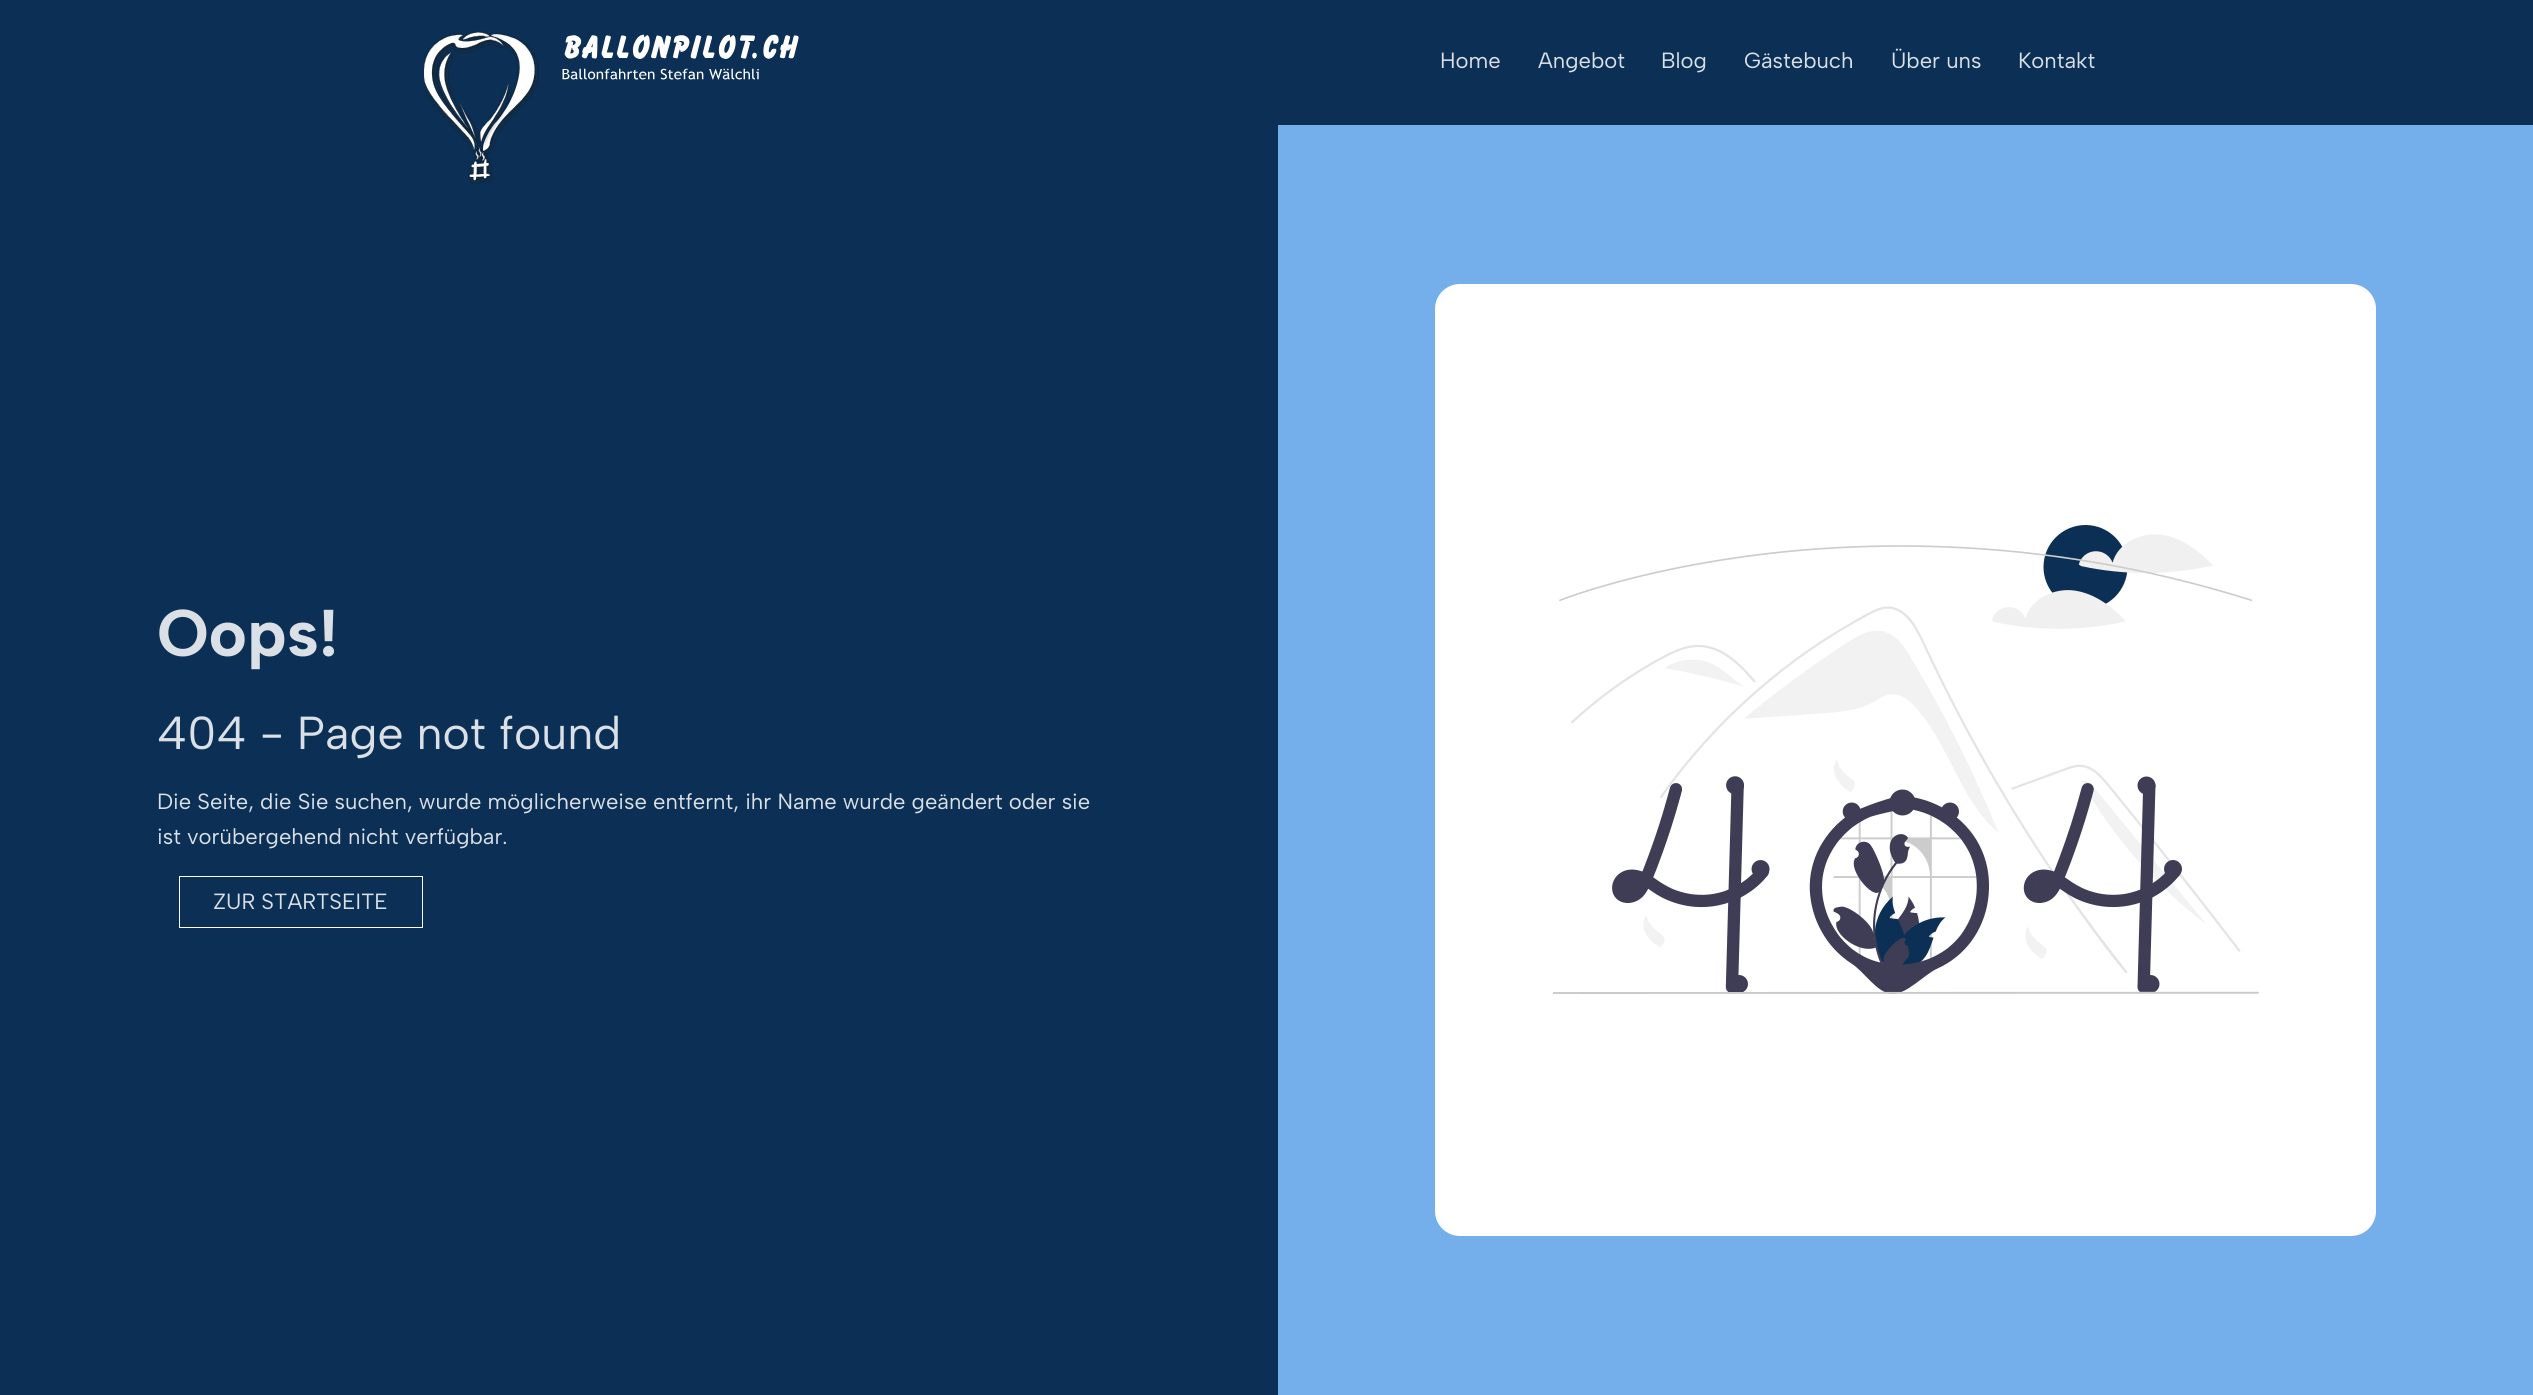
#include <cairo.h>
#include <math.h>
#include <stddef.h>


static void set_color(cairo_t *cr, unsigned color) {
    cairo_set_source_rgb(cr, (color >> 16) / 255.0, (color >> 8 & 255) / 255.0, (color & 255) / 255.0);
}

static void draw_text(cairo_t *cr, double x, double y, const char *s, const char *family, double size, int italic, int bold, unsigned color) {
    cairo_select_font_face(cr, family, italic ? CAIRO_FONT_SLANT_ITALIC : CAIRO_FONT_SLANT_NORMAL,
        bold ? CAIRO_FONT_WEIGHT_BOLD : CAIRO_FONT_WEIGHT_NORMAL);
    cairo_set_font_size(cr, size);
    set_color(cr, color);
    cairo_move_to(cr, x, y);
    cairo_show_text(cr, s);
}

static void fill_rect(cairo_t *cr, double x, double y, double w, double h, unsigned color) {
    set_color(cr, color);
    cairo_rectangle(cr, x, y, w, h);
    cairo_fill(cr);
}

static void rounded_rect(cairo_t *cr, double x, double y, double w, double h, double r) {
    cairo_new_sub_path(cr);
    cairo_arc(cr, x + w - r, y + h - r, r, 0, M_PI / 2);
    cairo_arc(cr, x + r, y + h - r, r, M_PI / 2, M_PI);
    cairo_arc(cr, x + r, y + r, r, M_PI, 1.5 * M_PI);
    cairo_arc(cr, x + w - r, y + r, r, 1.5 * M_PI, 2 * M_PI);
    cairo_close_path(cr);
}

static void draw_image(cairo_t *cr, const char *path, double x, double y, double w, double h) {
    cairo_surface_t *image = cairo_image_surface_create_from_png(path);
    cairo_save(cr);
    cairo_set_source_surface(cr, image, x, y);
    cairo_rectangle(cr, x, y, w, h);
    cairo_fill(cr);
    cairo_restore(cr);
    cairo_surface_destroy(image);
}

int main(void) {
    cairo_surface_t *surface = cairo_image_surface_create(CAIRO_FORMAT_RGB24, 2533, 1395);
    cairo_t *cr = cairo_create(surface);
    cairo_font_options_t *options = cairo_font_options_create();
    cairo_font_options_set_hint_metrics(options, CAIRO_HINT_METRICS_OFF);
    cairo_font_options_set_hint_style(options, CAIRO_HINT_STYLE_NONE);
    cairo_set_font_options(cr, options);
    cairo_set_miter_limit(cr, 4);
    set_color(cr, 0x0C3055);
    cairo_paint(cr);
    draw_image(cr, "assets/img1.png", 424, 31, 375, 154);
    draw_text(cr, 1440, 68, "Home", "Albert Sans", 22, 0, 0, 0xDBE0E6);
    draw_text(cr, 1538, 68, "Angebot", "Albert Sans", 22, 0, 0, 0xDBE0E6);
    draw_text(cr, 1661, 68, "Blog", "Albert Sans", 22, 0, 0, 0xDBE0E6);
    draw_text(cr, 1744, 68, "Gästebuch", "Albert Sans", 22, 0, 0, 0xDBE0E6);
    draw_text(cr, 1891, 68, "Über uns", "Albert Sans", 22, 0, 0, 0xDBE0E6);
    draw_text(cr, 2018, 68, "Kontakt", "Albert Sans", 22, 0, 0, 0xDBE0E6);
    draw_text(cr, 157, 656, "Oops!", "Albert Sans", 66, 0, 1, 0xDBE0E6);
    draw_text(cr, 157, 749, "404 - Page not found", "Albert Sans", 46.25, 0, 0, 0xDBE0E6);
    draw_text(cr, 157, 809, "Die Seite, die Sie suchen, wurde möglicherweise entfernt, ihr Name wurde geändert oder sie", "Albert Sans", 22, 0, 0, 0xDBE0E6);
    draw_text(cr, 157, 844, "ist vorübergehend nicht verfügbar.", "Albert Sans", 22, 0, 0, 0xDBE0E6);
    cairo_rectangle(cr, 179.5, 876.5, 243, 51);
    set_color(cr, 0xFFFFFF);
    cairo_set_line_width(cr, 1);
    cairo_stroke(cr);
    draw_text(cr, 213, 909, "ZUR STARTSEITE", "Albert Sans", 22, 0, 0, 0xDBE0E6);
    fill_rect(cr, 1278, 125, 1255, 1270, 0x75AFEB);
    set_color(cr, 0xFFFFFF);
    rounded_rect(cr, 1435, 284, 941, 952, 25);
    cairo_fill(cr);
    draw_image(cr, "assets/img2.png", 1553, 525, 706, 469);
    cairo_surface_write_to_png(surface, "output.png");
    cairo_font_options_destroy(options);
    cairo_destroy(cr);
    cairo_surface_destroy(surface);
    return 0;
}
